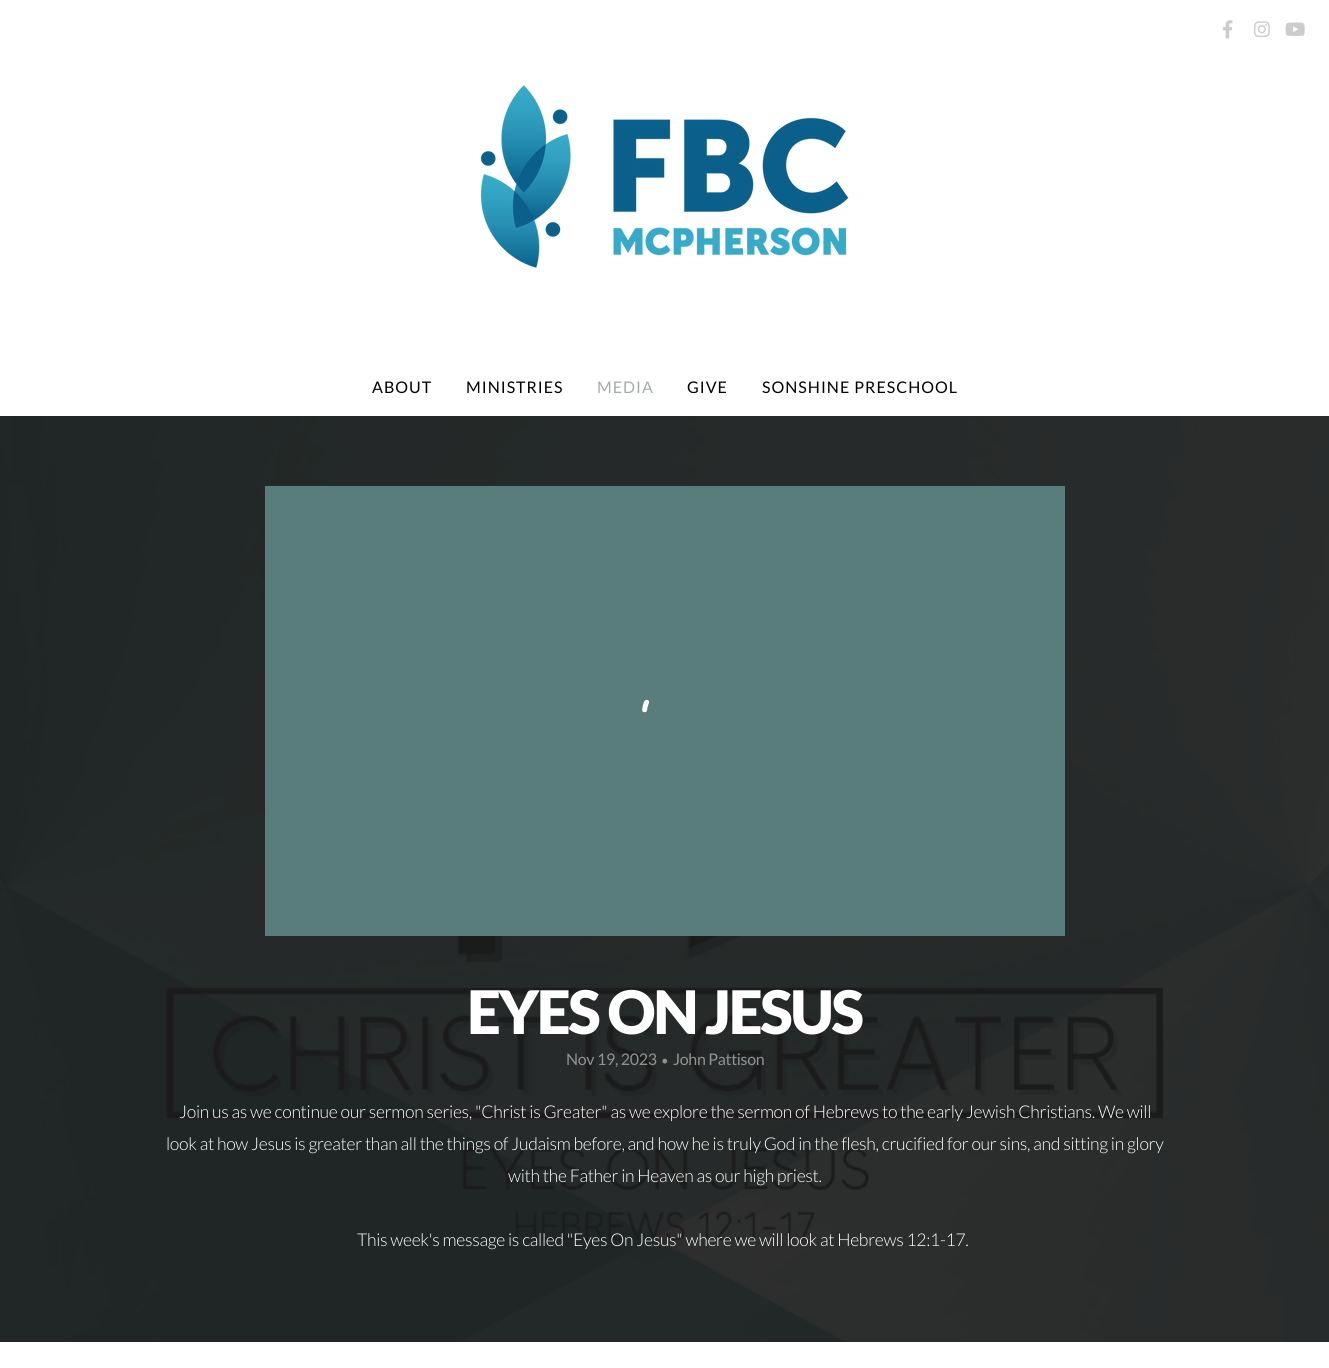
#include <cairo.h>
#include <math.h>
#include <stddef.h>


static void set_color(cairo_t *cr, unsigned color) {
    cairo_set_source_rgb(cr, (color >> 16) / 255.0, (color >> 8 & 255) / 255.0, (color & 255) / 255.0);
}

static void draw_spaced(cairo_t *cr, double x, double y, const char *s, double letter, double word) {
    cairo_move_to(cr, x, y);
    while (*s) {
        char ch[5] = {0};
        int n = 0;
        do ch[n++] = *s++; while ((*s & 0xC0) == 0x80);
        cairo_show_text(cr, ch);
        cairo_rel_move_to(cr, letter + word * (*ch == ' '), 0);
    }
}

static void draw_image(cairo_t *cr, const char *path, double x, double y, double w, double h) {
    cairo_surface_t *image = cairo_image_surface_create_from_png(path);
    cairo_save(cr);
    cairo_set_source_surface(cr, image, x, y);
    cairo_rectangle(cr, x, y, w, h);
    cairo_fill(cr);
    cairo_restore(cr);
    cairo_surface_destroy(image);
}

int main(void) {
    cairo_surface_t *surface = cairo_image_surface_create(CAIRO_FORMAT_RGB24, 1329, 1368);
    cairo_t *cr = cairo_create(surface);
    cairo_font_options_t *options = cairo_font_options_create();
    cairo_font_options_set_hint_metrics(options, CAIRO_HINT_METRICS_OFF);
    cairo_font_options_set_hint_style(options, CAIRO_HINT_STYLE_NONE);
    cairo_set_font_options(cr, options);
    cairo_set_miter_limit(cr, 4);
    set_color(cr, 0xFFFFFF);
    cairo_paint(cr);
    draw_image(cr, "assets/img1.png", 1222, 20, 11, 19);
    draw_image(cr, "assets/img2.png", 1254, 21, 16, 17);
    draw_image(cr, "assets/img3.png", 1285, 22, 20, 14);
    draw_image(cr, "assets/img4.png", 480, 85, 369, 183);
    cairo_select_font_face(cr, "Lato", CAIRO_FONT_SLANT_NORMAL, CAIRO_FONT_WEIGHT_NORMAL);
    cairo_set_font_size(cr, 16);
    set_color(cr, 0x000000);
    draw_spaced(cr, 372, 393, "ABOUT", 1, 0);
    draw_spaced(cr, 466, 393, "MINISTRIES", 1, 0);
    set_color(cr, 0xA6ABAC);
    draw_spaced(cr, 597, 393, "MEDIA", 1, 0);
    set_color(cr, 0x000000);
    draw_spaced(cr, 687, 393, "GIVE", 1, 0);
    draw_spaced(cr, 762, 393, "SONSHINE PRESCHOOL", 1, 0);
    draw_image(cr, "assets/img5.png", 0, 416, 1329, 926);
    draw_image(cr, "assets/img6.png", 265, 486, 800, 450);
    cairo_select_font_face(cr, "Lato Black", CAIRO_FONT_SLANT_NORMAL, CAIRO_FONT_WEIGHT_NORMAL);
    cairo_set_font_size(cr, 60);
    set_color(cr, 0xFFFFFF);
    draw_spaced(cr, 467, 1034, "EYES ON JESUS", -2.4, 0);
    cairo_select_font_face(cr, "Lato", CAIRO_FONT_SLANT_NORMAL, CAIRO_FONT_WEIGHT_NORMAL);
    cairo_set_font_size(cr, 16);
    set_color(cr, 0x919393);
    draw_spaced(cr, 566, 1065, "Nov 19, 2023", -0.32, 0);
    cairo_set_font_size(cr, 13);
    draw_spaced(cr, 661, 1065, "•", -0.32, 0);
    cairo_set_font_size(cr, 16);
    draw_spaced(cr, 673, 1065, "John Pattison", -0.32, 0);
    cairo_select_font_face(cr, "Lato Light", CAIRO_FONT_SLANT_NORMAL, CAIRO_FONT_WEIGHT_NORMAL);
    cairo_set_font_size(cr, 17.6);
    set_color(cr, 0xFFFFFF);
    draw_spaced(cr, 179, 1118, "Join us as we continue our sermon series, \"Christ is Greater\" as we explore the sermon of Hebrews to the early Jewish Christians. We will", -0.32, 0);
    draw_spaced(cr, 166, 1150, "look at how Jesus is greater than all the things of Judaism before, and how he is truly God in the flesh, crucified for our sins, and sitting in glory", -0.32, 0);
    draw_spaced(cr, 508, 1182, "with the Father in Heaven as our high priest.", -0.32, 0);
    draw_spaced(cr, 357, 1246, "This week's message is called \"Eyes On Jesus\" where we will look at Hebrews 12:1-17.", -0.32, 0);
    cairo_surface_write_to_png(surface, "output.png");
    cairo_font_options_destroy(options);
    cairo_destroy(cr);
    cairo_surface_destroy(surface);
    return 0;
}
